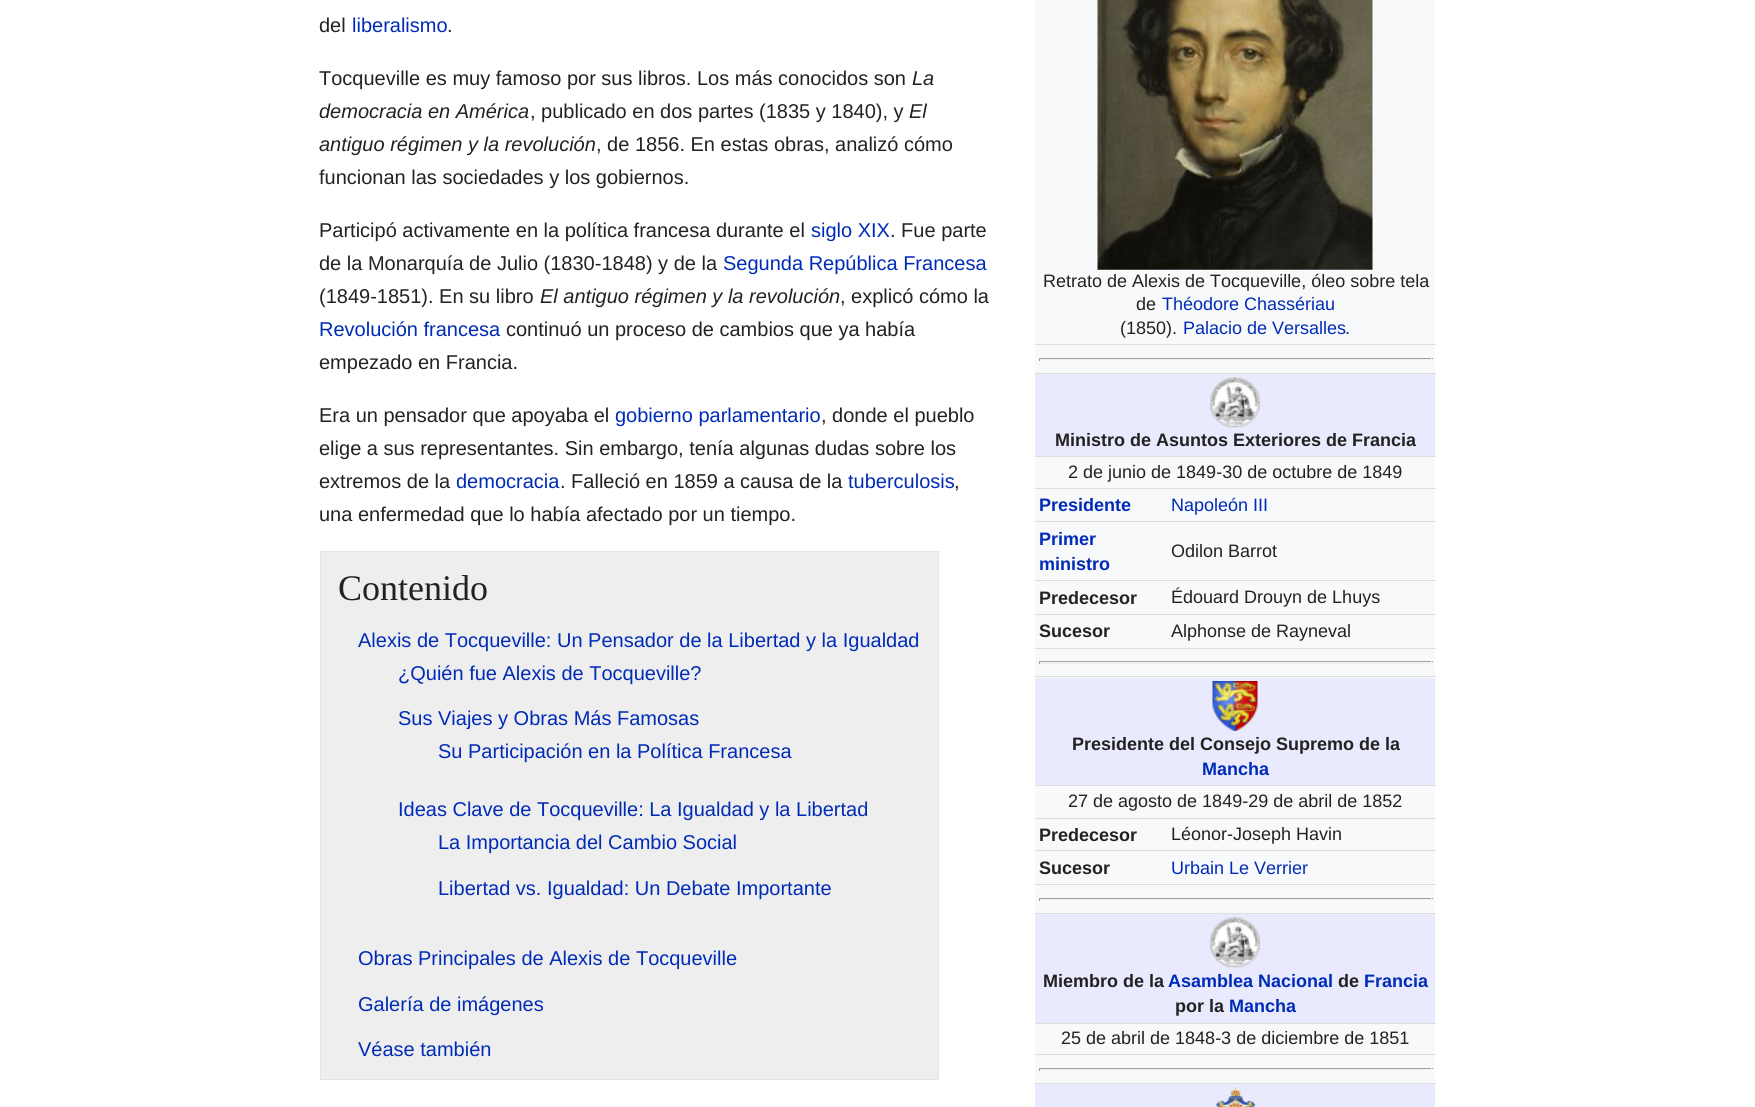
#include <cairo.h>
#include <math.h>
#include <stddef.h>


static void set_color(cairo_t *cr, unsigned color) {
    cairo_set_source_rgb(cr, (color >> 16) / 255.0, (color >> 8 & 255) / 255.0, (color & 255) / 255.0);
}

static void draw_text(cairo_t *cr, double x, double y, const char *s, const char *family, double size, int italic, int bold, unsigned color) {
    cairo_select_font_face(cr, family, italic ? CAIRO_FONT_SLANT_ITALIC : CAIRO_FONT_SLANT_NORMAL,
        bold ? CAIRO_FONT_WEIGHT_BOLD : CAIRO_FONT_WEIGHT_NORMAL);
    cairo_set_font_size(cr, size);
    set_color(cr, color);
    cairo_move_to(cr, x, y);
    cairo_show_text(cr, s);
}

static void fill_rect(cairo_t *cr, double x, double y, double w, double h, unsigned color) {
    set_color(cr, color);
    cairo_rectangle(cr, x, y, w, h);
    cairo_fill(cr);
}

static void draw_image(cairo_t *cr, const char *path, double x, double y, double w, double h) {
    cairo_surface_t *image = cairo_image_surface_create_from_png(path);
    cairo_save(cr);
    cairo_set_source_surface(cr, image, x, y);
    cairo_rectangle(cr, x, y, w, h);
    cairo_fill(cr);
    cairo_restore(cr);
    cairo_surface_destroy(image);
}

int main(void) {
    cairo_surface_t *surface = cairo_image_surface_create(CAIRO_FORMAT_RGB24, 1755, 1107);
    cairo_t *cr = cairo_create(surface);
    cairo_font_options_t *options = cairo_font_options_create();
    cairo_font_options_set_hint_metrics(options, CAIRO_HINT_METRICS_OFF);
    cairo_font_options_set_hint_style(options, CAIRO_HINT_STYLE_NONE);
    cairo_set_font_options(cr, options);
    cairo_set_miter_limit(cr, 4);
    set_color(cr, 0xFFFFFF);
    cairo_paint(cr);
    draw_text(cr, 319, 32, "del", "Liberation Sans", 20, 0, 0, 0x222222);
    draw_text(cr, 352, 32, "liberalismo", "Liberation Sans", 20, 0, 0, 0x002BB8);
    draw_text(cr, 447, 32, ".", "Liberation Sans", 20, 0, 0, 0x222222);
    draw_text(cr, 319, 85, "Tocqueville es muy famoso por sus libros. Los más conocidos son", "Liberation Sans", 20, 0, 0, 0x222222);
    draw_text(cr, 912, 85, "La", "Liberation Sans", 20, 1, 0, 0x222222);
    draw_text(cr, 319, 118, "democracia en América", "Liberation Sans", 20, 1, 0, 0x222222);
    draw_text(cr, 530, 118, ", publicado en dos partes (1835 y 1840), y", "Liberation Sans", 20, 0, 0, 0x222222);
    draw_text(cr, 909, 118, "El", "Liberation Sans", 20, 1, 0, 0x222222);
    draw_text(cr, 319, 151, "antiguo régimen y la revolución", "Liberation Sans", 20, 1, 0, 0x222222);
    draw_text(cr, 596, 151, ", de 1856. En estas obras, analizó cómo", "Liberation Sans", 20, 0, 0, 0x222222);
    draw_text(cr, 319, 184, "funcionan las sociedades y los gobiernos.", "Liberation Sans", 20, 0, 0, 0x222222);
    draw_text(cr, 319, 237, "Participó activamente en la política francesa durante el", "Liberation Sans", 20, 0, 0, 0x222222);
    draw_text(cr, 811, 237, "siglo XIX", "Liberation Sans", 20, 0, 0, 0x002BB8);
    draw_text(cr, 890, 237, ". Fue parte", "Liberation Sans", 20, 0, 0, 0x222222);
    draw_text(cr, 319, 270, "de la Monarquía de Julio (1830-1848) y de la", "Liberation Sans", 20, 0, 0, 0x222222);
    draw_text(cr, 723, 270, "Segunda República Francesa", "Liberation Sans", 20, 0, 0, 0x002BB8);
    draw_text(cr, 319, 303, "(1849-1851). En su libro", "Liberation Sans", 20, 0, 0, 0x222222);
    draw_text(cr, 540, 303, "El antiguo régimen y la revolución", "Liberation Sans", 20, 1, 0, 0x222222);
    draw_text(cr, 840, 303, ", explicó cómo la", "Liberation Sans", 20, 0, 0, 0x222222);
    draw_text(cr, 319, 336, "Revolución francesa", "Liberation Sans", 20, 0, 0, 0x002BB8);
    draw_text(cr, 506, 336, "continuó un proceso de cambios que ya había", "Liberation Sans", 20, 0, 0, 0x222222);
    draw_text(cr, 319, 369, "empezado en Francia.", "Liberation Sans", 20, 0, 0, 0x222222);
    fill_rect(cr, 1035, 0, 400, 1083, 0xF8F9FA);
    fill_rect(cr, 1035, 344, 401, 1, 0xDDDDDD);
    draw_image(cr, "assets/img1.png", 1097, 0, 276, 270);
    draw_text(cr, 1043, 287, "Retrato de Alexis de Tocqueville, óleo sobre tela", "Liberation Sans", 18, 0, 0, 0x222222);
    draw_text(cr, 1136, 310, "de", "Liberation Sans", 18, 0, 0, 0x222222);
    draw_text(cr, 1162, 310, "Théodore Chassériau", "Liberation Sans", 18, 0, 0, 0x002BB8);
    draw_text(cr, 1120, 334, "(1850).", "Liberation Sans", 18, 0, 0, 0x222222);
    draw_text(cr, 1183, 334, "Palacio de Versalles", "Liberation Sans", 18, 0, 0, 0x002BB8);
    draw_text(cr, 1345, 334, ".", "Liberation Sans", 18, 0, 0, 0x222222);
    fill_rect(cr, 1035, 373, 401, 1, 0xDDDDDD);
    fill_rect(cr, 1039, 358, 394, 1, 0x9F9F9F);
    fill_rect(cr, 1431, 358, 1, 3, 0xEEEEEE);
    fill_rect(cr, 1039, 359, 394, 1, 0xEEEEEE);
    fill_rect(cr, 1039, 358, 1, 3, 0x9F9F9F);
    fill_rect(cr, 1035, 374, 400, 82, 0xEAEAFE);
    fill_rect(cr, 1035, 456, 401, 1, 0xDDDDDD);
    draw_image(cr, "assets/img2.png", 1210, 377, 50, 51);
    draw_text(cr, 1055, 446, "Ministro de Asuntos Exteriores de Francia", "Liberation Sans", 18, 0, 1, 0x222222);
    fill_rect(cr, 1035, 488, 401, 1, 0xDDDDDD);
    draw_text(cr, 1068, 478, "2 de junio de 1849-30 de octubre de 1849", "Liberation Sans", 18, 0, 0, 0x222222);
    draw_text(cr, 1039, 511, "Presidente", "Liberation Sans", 18, 0, 1, 0x002BB8);
    fill_rect(cr, 1035, 521, 401, 1, 0xDDDDDD);
    draw_text(cr, 1171, 511, "Napoleón III", "Liberation Sans", 18, 0, 0, 0x002BB8);
    draw_text(cr, 1039, 545, "Primer", "Liberation Sans", 18, 0, 1, 0x002BB8);
    draw_text(cr, 1039, 570, "ministro", "Liberation Sans", 18, 0, 1, 0x002BB8);
    fill_rect(cr, 1035, 580, 401, 1, 0xDDDDDD);
    draw_text(cr, 1171, 557, "Odilon Barrot", "Liberation Sans", 18, 0, 0, 0x222222);
    draw_text(cr, 1039, 604, "Predecesor", "Liberation Sans", 18, 0, 1, 0x222222);
    fill_rect(cr, 1035, 614, 401, 1, 0xDDDDDD);
    draw_text(cr, 1171, 603, "Édouard Drouyn de Lhuys", "Liberation Sans", 18, 0, 0, 0x222222);
    draw_text(cr, 1039, 637, "Sucesor", "Liberation Sans", 18, 0, 1, 0x222222);
    fill_rect(cr, 1035, 648, 401, 1, 0xDDDDDD);
    draw_text(cr, 1171, 637, "Alphonse de Rayneval", "Liberation Sans", 18, 0, 0, 0x222222);
    fill_rect(cr, 1035, 676, 401, 1, 0xDDDDDD);
    fill_rect(cr, 1039, 661, 394, 1, 0x9F9F9F);
    fill_rect(cr, 1431, 661, 1, 3, 0xEEEEEE);
    fill_rect(cr, 1039, 663, 394, 1, 0xEEEEEE);
    fill_rect(cr, 1039, 661, 1, 3, 0x9F9F9F);
    fill_rect(cr, 1035, 678, 400, 107, 0xEAEAFE);
    fill_rect(cr, 1035, 785, 401, 1, 0xDDDDDD);
    draw_image(cr, "assets/img3.png", 1212, 681, 46, 50);
    draw_text(cr, 1072, 750, "Presidente del Consejo Supremo de la", "Liberation Sans", 18, 0, 1, 0x222222);
    draw_text(cr, 1202, 775, "Mancha", "Liberation Sans", 18, 0, 1, 0x002BB8);
    fill_rect(cr, 1035, 818, 401, 1, 0xDDDDDD);
    draw_text(cr, 1068, 807, "27 de agosto de 1849-29 de abril de 1852", "Liberation Sans", 18, 0, 0, 0x222222);
    draw_text(cr, 1039, 841, "Predecesor", "Liberation Sans", 18, 0, 1, 0x222222);
    fill_rect(cr, 1035, 850, 401, 1, 0xDDDDDD);
    draw_text(cr, 1171, 840, "Léonor-Joseph Havin", "Liberation Sans", 18, 0, 0, 0x222222);
    draw_text(cr, 1039, 874, "Sucesor", "Liberation Sans", 18, 0, 1, 0x222222);
    fill_rect(cr, 1035, 884, 401, 1, 0xDDDDDD);
    draw_text(cr, 1171, 874, "Urbain Le Verrier", "Liberation Sans", 18, 0, 0, 0x002BB8);
    fill_rect(cr, 1035, 913, 401, 1, 0xDDDDDD);
    fill_rect(cr, 1039, 898, 394, 1, 0x9F9F9F);
    fill_rect(cr, 1431, 898, 1, 3, 0xEEEEEE);
    fill_rect(cr, 1039, 899, 394, 1, 0xEEEEEE);
    fill_rect(cr, 1039, 898, 1, 3, 0x9F9F9F);
    fill_rect(cr, 1035, 914, 400, 109, 0xEAEAFE);
    fill_rect(cr, 1035, 1023, 401, 1, 0xDDDDDD);
    draw_image(cr, "assets/img2.png", 1210, 917, 50, 51);
    draw_text(cr, 1043, 987, "Miembro de la", "Liberation Sans", 18, 0, 1, 0x222222);
    draw_text(cr, 1168, 987, "Asamblea Nacional", "Liberation Sans", 18, 0, 1, 0x002BB8);
    draw_text(cr, 1338, 987, "de", "Liberation Sans", 18, 0, 1, 0x222222);
    draw_text(cr, 1364, 987, "Francia", "Liberation Sans", 18, 0, 1, 0x002BB8);
    draw_text(cr, 1175, 1012, "por la", "Liberation Sans", 18, 0, 1, 0x222222);
    draw_text(cr, 1229, 1012, "Mancha", "Liberation Sans", 18, 0, 1, 0x002BB8);
    fill_rect(cr, 1035, 1054, 401, 1, 0xDDDDDD);
    draw_text(cr, 1061, 1044, "25 de abril de 1848-3 de diciembre de 1851", "Liberation Sans", 18, 0, 0, 0x222222);
    fill_rect(cr, 1035, 1083, 401, 1, 0xDDDDDD);
    fill_rect(cr, 1039, 1068, 394, 1, 0x9F9F9F);
    fill_rect(cr, 1431, 1068, 1, 3, 0xEEEEEE);
    fill_rect(cr, 1039, 1069, 394, 1, 0xEEEEEE);
    fill_rect(cr, 1039, 1068, 1, 3, 0x9F9F9F);
    fill_rect(cr, 1035, 1084, 400, 23, 0xEAEAFE);
    draw_image(cr, "assets/img4.png", 1216, 1087, 40, 20);
    draw_text(cr, 319, 422, "Era un pensador que apoyaba el", "Liberation Sans", 20, 0, 0, 0x222222);
    draw_text(cr, 615, 422, "gobierno parlamentario", "Liberation Sans", 20, 0, 0, 0x002BB8);
    draw_text(cr, 821, 422, ", donde el pueblo", "Liberation Sans", 20, 0, 0, 0x222222);
    draw_text(cr, 319, 455, "elige a sus representantes. Sin embargo, tenía algunas dudas sobre los", "Liberation Sans", 20, 0, 0, 0x222222);
    draw_text(cr, 319, 488, "extremos de la", "Liberation Sans", 20, 0, 0, 0x222222);
    draw_text(cr, 456, 488, "democracia", "Liberation Sans", 20, 0, 0, 0x002BB8);
    draw_text(cr, 560, 488, ". Falleció en 1859 a causa de la", "Liberation Sans", 20, 0, 0, 0x222222);
    draw_text(cr, 848, 488, "tuberculosis", "Liberation Sans", 20, 0, 0, 0x002BB8);
    draw_text(cr, 954, 488, ",", "Liberation Sans", 20, 0, 0, 0x222222);
    draw_text(cr, 319, 521, "una enfermedad que lo había afectado por un tiempo.", "Liberation Sans", 20, 0, 0, 0x222222);
    set_color(cr, 0xEEEEEE);
    cairo_rectangle(cr, 320.5, 551.5, 618, 528);
    cairo_fill_preserve(cr);
    set_color(cr, 0xE3E3E3);
    cairo_set_line_width(cr, 1);
    cairo_stroke(cr);
    draw_text(cr, 338, 600, "Contenido", "Liberation Serif", 36, 0, 0, 0x222222);
    fill_rect(cr, 339, 625, 150, 1, 0xEAECF0);
    draw_text(cr, 358, 647, "Alexis de Tocqueville: Un Pensador de la Libertad y la Igualdad", "Liberation Sans", 20, 0, 0, 0x002BB8);
    draw_text(cr, 398, 680, "¿Quién fue Alexis de Tocqueville?", "Liberation Sans", 20, 0, 0, 0x002BB8);
    draw_text(cr, 398, 725, "Sus Viajes y Obras Más Famosas", "Liberation Sans", 20, 0, 0, 0x002BB8);
    draw_text(cr, 438, 758, "Su Participación en la Política Francesa", "Liberation Sans", 20, 0, 0, 0x002BB8);
    draw_text(cr, 398, 816, "Ideas Clave de Tocqueville: La Igualdad y la Libertad", "Liberation Sans", 20, 0, 0, 0x002BB8);
    draw_text(cr, 438, 849, "La Importancia del Cambio Social", "Liberation Sans", 20, 0, 0, 0x002BB8);
    draw_text(cr, 438, 895, "Libertad vs. Igualdad: Un Debate Importante", "Liberation Sans", 20, 0, 0, 0x002BB8);
    draw_text(cr, 358, 965, "Obras Principales de Alexis de Tocqueville", "Liberation Sans", 20, 0, 0, 0x002BB8);
    draw_text(cr, 358, 1011, "Galería de imágenes", "Liberation Sans", 20, 0, 0, 0x002BB8);
    draw_text(cr, 358, 1056, "Véase también", "Liberation Sans", 20, 0, 0, 0x002BB8);
    cairo_surface_write_to_png(surface, "output.png");
    cairo_font_options_destroy(options);
    cairo_destroy(cr);
    cairo_surface_destroy(surface);
    return 0;
}
